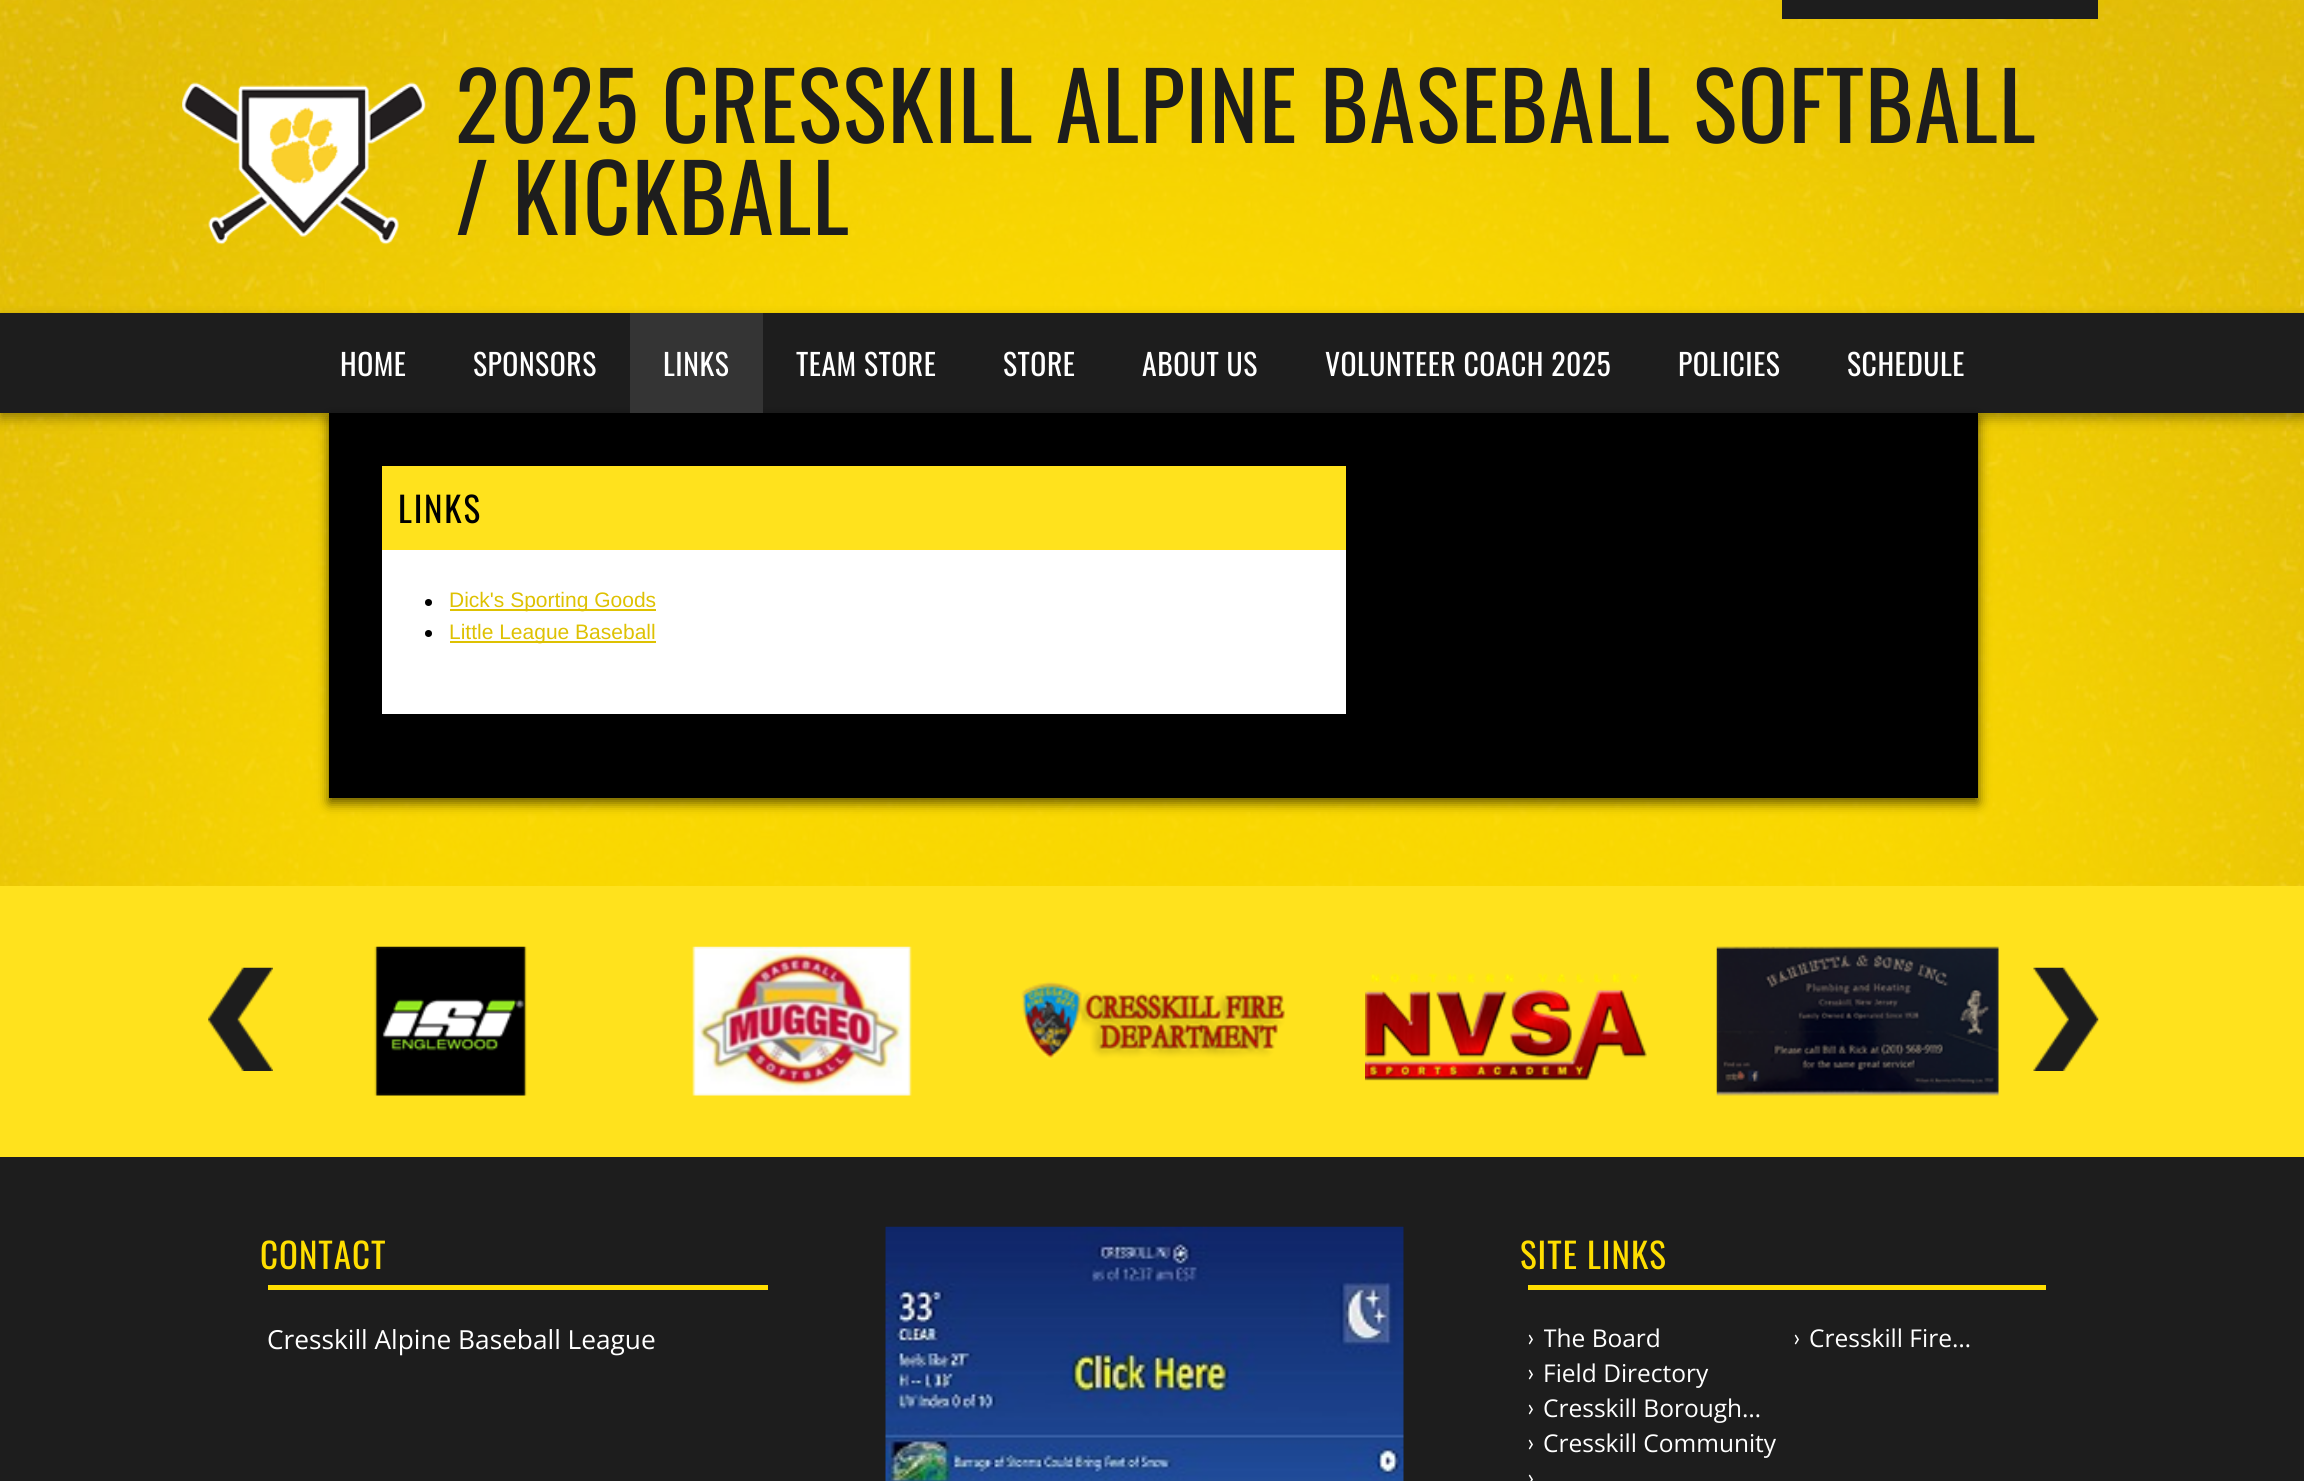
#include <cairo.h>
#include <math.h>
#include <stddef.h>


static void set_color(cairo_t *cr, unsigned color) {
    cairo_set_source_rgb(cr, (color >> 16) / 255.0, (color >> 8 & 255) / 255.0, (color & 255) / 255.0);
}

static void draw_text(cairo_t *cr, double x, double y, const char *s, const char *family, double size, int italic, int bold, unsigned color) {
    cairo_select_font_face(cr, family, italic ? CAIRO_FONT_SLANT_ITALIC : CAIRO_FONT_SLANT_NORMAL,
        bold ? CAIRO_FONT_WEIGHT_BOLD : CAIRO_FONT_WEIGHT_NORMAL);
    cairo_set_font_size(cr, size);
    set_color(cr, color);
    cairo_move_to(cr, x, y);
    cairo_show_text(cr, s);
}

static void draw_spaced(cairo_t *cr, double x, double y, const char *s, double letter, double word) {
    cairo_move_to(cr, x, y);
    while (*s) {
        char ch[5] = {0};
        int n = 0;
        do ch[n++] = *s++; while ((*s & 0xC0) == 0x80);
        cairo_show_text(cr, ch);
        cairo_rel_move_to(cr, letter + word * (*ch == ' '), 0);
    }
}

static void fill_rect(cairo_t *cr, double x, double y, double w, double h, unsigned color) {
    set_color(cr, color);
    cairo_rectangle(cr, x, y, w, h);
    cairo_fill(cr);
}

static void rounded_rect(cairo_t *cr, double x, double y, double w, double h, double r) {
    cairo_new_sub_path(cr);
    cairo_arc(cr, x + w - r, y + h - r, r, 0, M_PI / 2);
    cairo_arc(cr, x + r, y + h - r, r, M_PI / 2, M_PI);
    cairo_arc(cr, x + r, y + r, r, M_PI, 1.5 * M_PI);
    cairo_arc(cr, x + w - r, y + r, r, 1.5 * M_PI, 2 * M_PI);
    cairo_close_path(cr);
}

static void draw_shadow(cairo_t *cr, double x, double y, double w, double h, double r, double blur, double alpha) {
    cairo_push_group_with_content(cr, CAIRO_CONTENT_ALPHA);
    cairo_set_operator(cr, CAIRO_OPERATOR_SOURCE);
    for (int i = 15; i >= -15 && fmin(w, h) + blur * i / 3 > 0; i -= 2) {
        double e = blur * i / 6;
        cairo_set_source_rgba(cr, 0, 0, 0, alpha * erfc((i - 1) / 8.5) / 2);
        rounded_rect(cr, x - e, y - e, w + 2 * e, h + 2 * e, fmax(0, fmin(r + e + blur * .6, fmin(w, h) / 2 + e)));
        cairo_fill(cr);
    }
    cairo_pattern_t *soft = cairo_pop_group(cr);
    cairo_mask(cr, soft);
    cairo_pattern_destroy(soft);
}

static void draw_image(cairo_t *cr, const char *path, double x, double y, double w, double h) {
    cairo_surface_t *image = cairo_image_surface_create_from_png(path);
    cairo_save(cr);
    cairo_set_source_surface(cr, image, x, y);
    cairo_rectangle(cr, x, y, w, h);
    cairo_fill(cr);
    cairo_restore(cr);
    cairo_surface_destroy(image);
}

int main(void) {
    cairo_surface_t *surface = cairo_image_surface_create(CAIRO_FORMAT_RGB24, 2304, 1481);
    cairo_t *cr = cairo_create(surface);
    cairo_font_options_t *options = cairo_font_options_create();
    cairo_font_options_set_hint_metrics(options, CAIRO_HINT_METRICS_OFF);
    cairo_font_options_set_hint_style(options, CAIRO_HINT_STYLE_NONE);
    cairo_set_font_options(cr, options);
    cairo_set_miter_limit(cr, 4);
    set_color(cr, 0xFFFFFF);
    cairo_paint(cr);
    draw_image(cr, "assets/img1.png", 0, 0, 2304, 886);
    draw_image(cr, "assets/img2.png", 0, 0, 2304, 886);
    fill_rect(cr, 1782, 0, 316, 19, 0x1D1D1D);
    draw_image(cr, "assets/img3.png", 182, 82, 244, 163);
    cairo_select_font_face(cr, "Oswald", CAIRO_FONT_SLANT_NORMAL, CAIRO_FONT_WEIGHT_NORMAL);
    cairo_set_font_size(cr, 92.75);
    draw_spaced(cr, 455, 143, "2025 CRESSKILL ALPINE BASEBALL SOFTBALL", 0.9, 0);
    draw_spaced(cr, 455, 235, "/ KICKBALL", 0.9, 0);
    set_color(cr, 0x000000);
    draw_shadow(cr, 0, 319, 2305, 99, 0, 6, 0.35);
    fill_rect(cr, 0, 313, 2304, 100, 0x1D1D1D);
    cairo_set_font_size(cr, 29.75);
    set_color(cr, 0xFFFFFF);
    draw_spaced(cr, 340, 376, "HOME", 0.5, 0);
    draw_spaced(cr, 473, 376, "SPONSORS", 0.5, 0);
    set_color(cr, 0x000000);
    draw_shadow(cr, 329, 418, 1649, 385, 0, 6, 0.61);
    fill_rect(cr, 630, 313, 133, 100, 0x343434);
    set_color(cr, 0xFFFFFF);
    draw_spaced(cr, 663, 376, "LINKS", 0.5, 0);
    draw_spaced(cr, 796, 376, "TEAM STORE", 0.5, 0);
    draw_spaced(cr, 1003, 376, "STORE", 0.5, 0);
    draw_spaced(cr, 1142, 376, "ABOUT US", 0.5, 0);
    draw_spaced(cr, 1325, 376, "VOLUNTEER COACH 2025", 0.5, 0);
    draw_spaced(cr, 1678, 376, "POLICIES", 0.5, 0);
    draw_spaced(cr, 1847, 376, "SCHEDULE", 0.5, 0);
    fill_rect(cr, 329, 413, 1649, 385, 0x000000);
    fill_rect(cr, 382, 466, 964, 84, 0xFFE21D);
    cairo_set_font_size(cr, 35);
    set_color(cr, 0x000000);
    draw_spaced(cr, 398, 523, "LINKS", 1.75, 0);
    fill_rect(cr, 382, 550, 964, 164, 0xFFFFFF);
    set_color(cr, 0x000000);
    cairo_new_path(cr);
    cairo_arc(cr, 428.5, 602.5, 3.5, 0, 2 * M_PI);
    cairo_fill(cr);
    fill_rect(cr, 450, 609, 206, 2, 0xDEC102);
    draw_text(cr, 449, 607, "Dick's Sporting Goods", "Liberation Sans", 21, 0, 0, 0xDEC102);
    set_color(cr, 0x000000);
    cairo_new_path(cr);
    cairo_arc(cr, 428.5, 633.5, 3.5, 0, 2 * M_PI);
    cairo_fill(cr);
    fill_rect(cr, 450, 641, 206, 2, 0xDEC102);
    draw_text(cr, 449, 639, "Little League Baseball", "Liberation Sans", 21, 0, 0, 0xDEC102);
    fill_rect(cr, 0, 886, 2304, 271, 0xFFE21D);
    draw_image(cr, "assets/img4.png", 208, 967, 65, 104);
    draw_image(cr, "assets/img5.png", 374, 946, 153, 150);
    draw_image(cr, "assets/img6.png", 692, 946, 220, 150);
    draw_image(cr, "assets/img7.png", 1020, 981, 265, 79);
    draw_image(cr, "assets/img8.png", 1365, 973, 282, 108);
    draw_image(cr, "assets/img9.png", 1716, 946, 283, 150);
    draw_image(cr, "assets/img10.png", 2033, 967, 66, 104);
    fill_rect(cr, 0, 1157, 2304, 324, 0x1D1D1D);
    cairo_select_font_face(cr, "Oswald", CAIRO_FONT_SLANT_NORMAL, CAIRO_FONT_WEIGHT_NORMAL);
    cairo_set_font_size(cr, 35);
    set_color(cr, 0xFFDE00);
    draw_spaced(cr, 260, 1269, "CONTACT", 1, 0);
    fill_rect(cr, 268, 1285, 500, 5, 0xFFDE00);
    draw_text(cr, 267, 1349, "Cresskill Alpine Baseball League", "Open Sans", 26.25, 0, 0, 0xFFFFFF);
    draw_image(cr, "assets/img11.png", 885, 1226, 519, 255);
    cairo_select_font_face(cr, "Oswald", CAIRO_FONT_SLANT_NORMAL, CAIRO_FONT_WEIGHT_NORMAL);
    cairo_set_font_size(cr, 35);
    set_color(cr, 0xFFDE00);
    draw_spaced(cr, 1520, 1269, "SITE LINKS", 1, 0);
    fill_rect(cr, 1528, 1285, 518, 5, 0xFFDE00);
    draw_text(cr, 1527, 1346, "›", "Lato", 24.5, 0, 0, 0xFFFFFF);
    cairo_save(cr);
    cairo_rectangle(cr, 1544, 1321, 236, 35);
    cairo_clip(cr);
    draw_text(cr, 1543, 1347, "The Board", "Open Sans", 24.5, 0, 0, 0xFFFFFF);
    cairo_restore(cr);
    draw_text(cr, 1527, 1381, "›", "Lato", 24.5, 0, 0, 0xFFFFFF);
    draw_text(cr, 1543, 1382, "Field Directory", "Open Sans", 24.5, 0, 0, 0xFFFFFF);
    draw_text(cr, 1527, 1416, "›", "Lato", 24.5, 0, 0, 0xFFFFFF);
    draw_text(cr, 1543, 1417, "Cresskill Borough…", "Open Sans", 24.5, 0, 0, 0xFFFFFF);
    draw_text(cr, 1527, 1451, "›", "Lato", 24.5, 0, 0, 0xFFFFFF);
    draw_text(cr, 1543, 1452, "Cresskill Community", "Open Sans", 24.5, 0, 0, 0xFFFFFF);
    draw_text(cr, 1527, 1486, "›", "Lato", 24.5, 0, 0, 0xFFFFFF);
    draw_text(cr, 1793, 1346, "›", "Lato", 24.5, 0, 0, 0xFFFFFF);
    draw_text(cr, 1809, 1347, "Cresskill Fire…", "Open Sans", 24.5, 0, 0, 0xFFFFFF);
    cairo_surface_write_to_png(surface, "output.png");
    cairo_font_options_destroy(options);
    cairo_destroy(cr);
    cairo_surface_destroy(surface);
    return 0;
}
